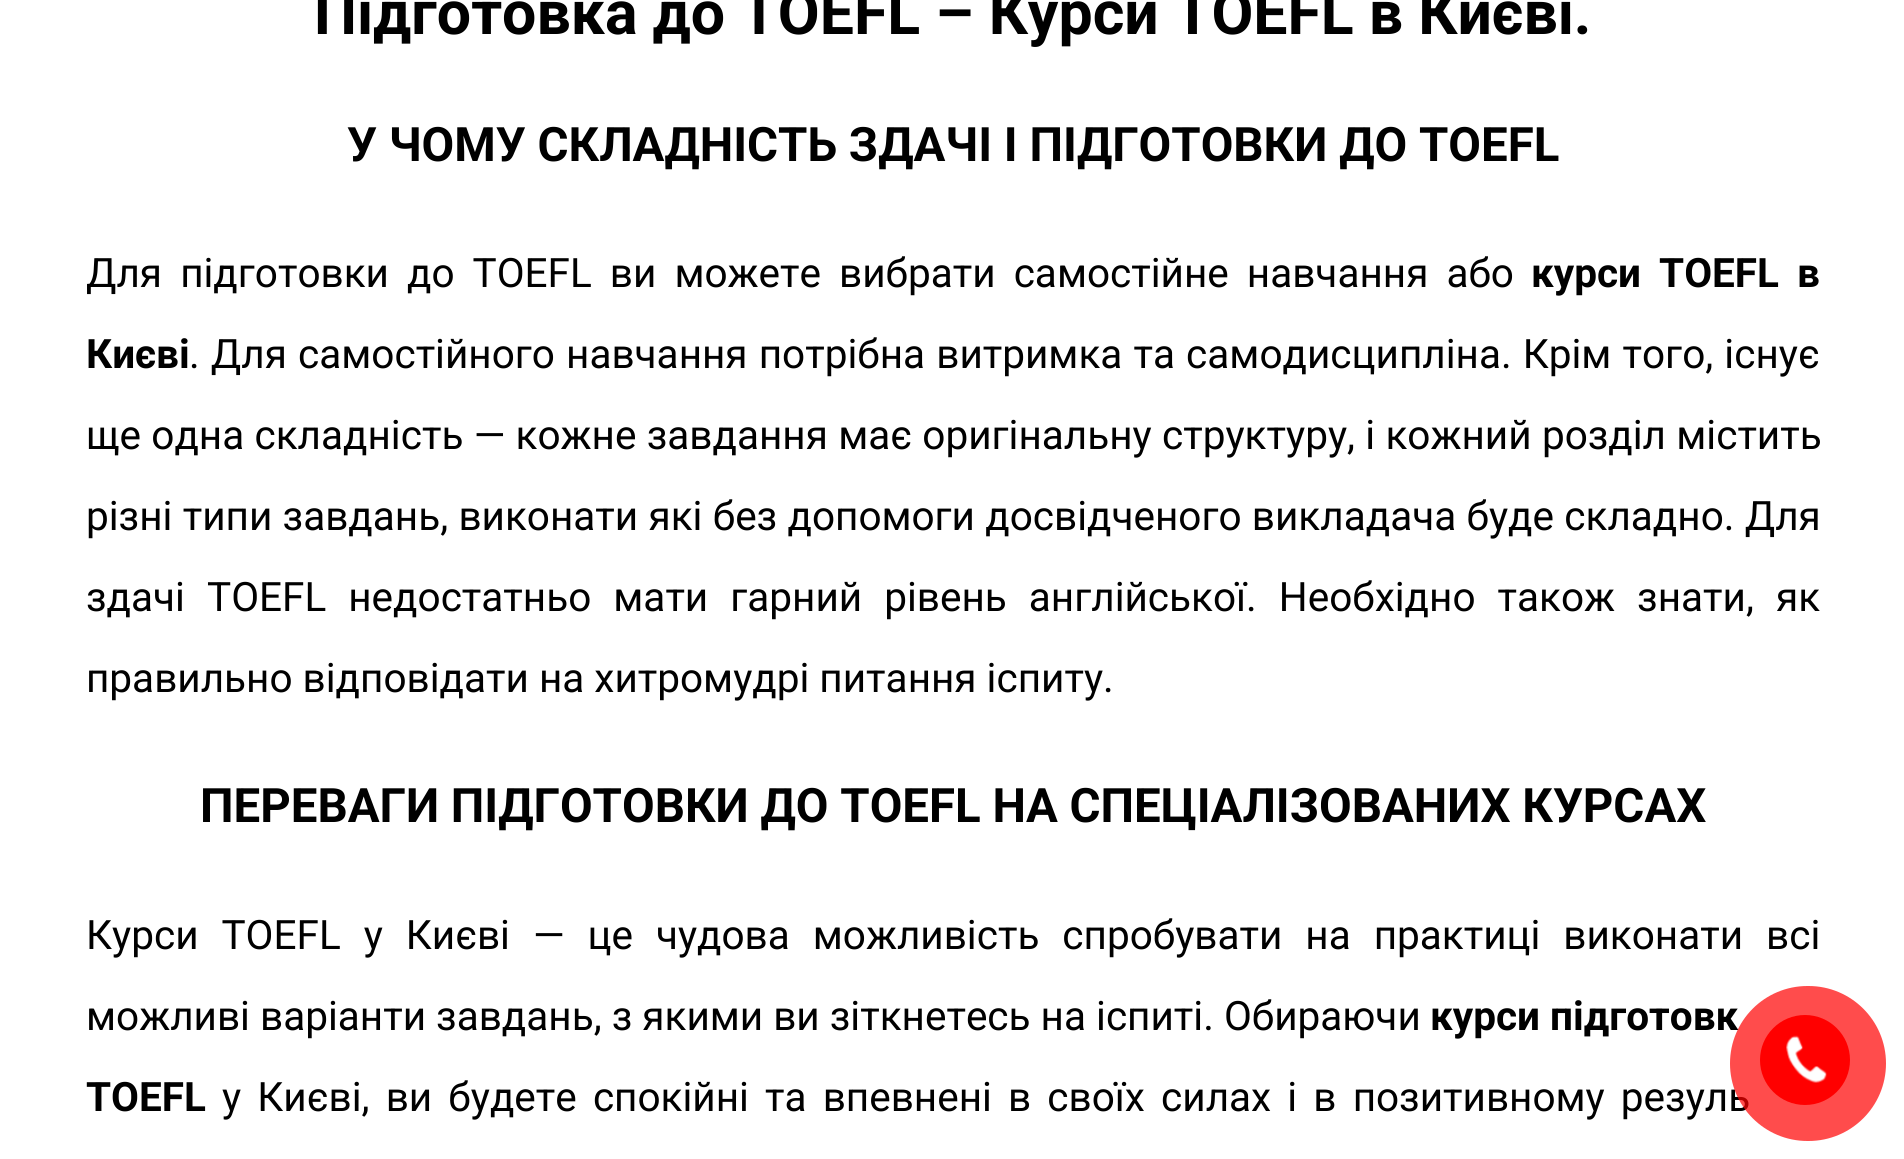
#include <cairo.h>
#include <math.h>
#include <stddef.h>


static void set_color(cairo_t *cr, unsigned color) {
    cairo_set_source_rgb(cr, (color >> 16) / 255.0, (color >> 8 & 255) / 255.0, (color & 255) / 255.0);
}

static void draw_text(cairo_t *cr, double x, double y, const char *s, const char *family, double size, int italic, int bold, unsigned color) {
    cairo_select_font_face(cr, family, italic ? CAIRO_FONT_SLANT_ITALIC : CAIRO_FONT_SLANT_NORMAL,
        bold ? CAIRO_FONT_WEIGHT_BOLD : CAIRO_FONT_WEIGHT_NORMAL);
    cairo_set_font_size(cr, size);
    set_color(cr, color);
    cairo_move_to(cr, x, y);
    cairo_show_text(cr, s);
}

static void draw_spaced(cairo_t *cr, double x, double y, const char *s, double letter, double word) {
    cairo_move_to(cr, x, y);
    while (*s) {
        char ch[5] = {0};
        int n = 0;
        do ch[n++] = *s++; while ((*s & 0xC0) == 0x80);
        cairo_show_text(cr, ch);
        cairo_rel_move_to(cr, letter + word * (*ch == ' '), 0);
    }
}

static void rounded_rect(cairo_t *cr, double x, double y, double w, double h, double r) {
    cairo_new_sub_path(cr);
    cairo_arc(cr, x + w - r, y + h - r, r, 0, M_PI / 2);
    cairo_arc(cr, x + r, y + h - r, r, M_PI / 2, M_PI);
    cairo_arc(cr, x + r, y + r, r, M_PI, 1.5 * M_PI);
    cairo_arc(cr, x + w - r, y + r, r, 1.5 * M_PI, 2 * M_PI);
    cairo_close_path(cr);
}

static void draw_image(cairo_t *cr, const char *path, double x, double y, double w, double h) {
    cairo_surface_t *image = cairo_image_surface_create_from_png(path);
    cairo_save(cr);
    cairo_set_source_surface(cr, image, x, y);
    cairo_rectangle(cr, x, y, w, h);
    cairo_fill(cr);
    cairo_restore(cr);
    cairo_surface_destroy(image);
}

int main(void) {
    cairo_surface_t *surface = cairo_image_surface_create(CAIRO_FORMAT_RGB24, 1904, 1159);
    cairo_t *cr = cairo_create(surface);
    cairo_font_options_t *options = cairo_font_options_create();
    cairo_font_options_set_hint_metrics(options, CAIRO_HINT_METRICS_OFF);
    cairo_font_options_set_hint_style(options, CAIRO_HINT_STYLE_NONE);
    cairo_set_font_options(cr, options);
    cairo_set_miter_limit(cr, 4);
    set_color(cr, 0xFFFFFF);
    cairo_paint(cr);
    draw_text(cr, 314, 34, "Підготовка до TOEFL – Курси TOEFL в Києві.", "Roboto", 60.75, 0, 1, 0x000000);
    draw_text(cr, 347, 161, "У ЧОМУ СКЛАДНІСТЬ ЗДАЧІ І ПІДГОТОВКИ ДО TOEFL", "Roboto", 47.4, 0, 1, 0x000000);
    cairo_select_font_face(cr, "Roboto", CAIRO_FONT_SLANT_NORMAL, CAIRO_FONT_WEIGHT_NORMAL);
    cairo_set_font_size(cr, 40.5);
    draw_spaced(cr, 86, 287, "Для підготовки до TOEFL ви можете вибрати самостійне навчання або", 0, 8);
    cairo_select_font_face(cr, "Roboto", CAIRO_FONT_SLANT_NORMAL, CAIRO_FONT_WEIGHT_BOLD);
    draw_spaced(cr, 1531, 287, "курси TOEFL в", 0, 8);
    draw_text(cr, 86, 368, "Києві", "Roboto", 40.5, 0, 1, 0x000000);
    cairo_select_font_face(cr, "Roboto", CAIRO_FONT_SLANT_NORMAL, CAIRO_FONT_WEIGHT_NORMAL);
    draw_spaced(cr, 189, 368, ". Для самостійного навчання потрібна витримка та самодисципліна. Крім того, існує", 0, 1.1);
    draw_spaced(cr, 86, 449, "ще одна складність — кожне завдання має оригінальну структуру, і кожний розділ містить", 0, 0.25);
    draw_spaced(cr, 86, 530, "різні типи завдань, виконати які без допомоги досвідченого викладача буде складно. Для", 0, 0.25);
    draw_spaced(cr, 86, 611, "здачі TOEFL недостатньо мати гарний рівень англійської. Необхідно також знати, як", 0, 12);
    draw_text(cr, 86, 692, "правильно відповідати на хитромудрі питання іспиту.", "Roboto", 40.5, 0, 0, 0x000000);
    draw_text(cr, 200, 822, "ПЕРЕВАГИ ПІДГОТОВКИ ДО TOEFL НА СПЕЦІАЛІЗОВАНИХ КУРСАХ", "Roboto", 47.4, 0, 1, 0x000000);
    cairo_select_font_face(cr, "Roboto", CAIRO_FONT_SLANT_NORMAL, CAIRO_FONT_WEIGHT_NORMAL);
    cairo_set_font_size(cr, 40.5);
    draw_spaced(cr, 86, 949, "Курси TOEFL у Києві — це чудова можливість спробувати на практиці виконати всі", 0, 12.9);
    draw_text(cr, 86, 1030, "можливі варіанти завдань, з якими ви зіткнетесь на іспиті. Обираючи", "Roboto", 40.5, 0, 0, 0x000000);
    draw_text(cr, 1430, 1030, "курси підготовк", "Roboto", 40.5, 0, 1, 0x000000);
    draw_text(cr, 86, 1111, "TOEFL", "Roboto", 40.5, 0, 1, 0x000000);
    cairo_select_font_face(cr, "Roboto", CAIRO_FONT_SLANT_NORMAL, CAIRO_FONT_WEIGHT_NORMAL);
    draw_spaced(cr, 222, 1111, "у Києві, ви будете спокійні та впевнені в своїх силах і в позитивному резуль", 0, 6.1);
    cairo_set_source_rgba(cr, 1, 0, 0, 0.7);
    rounded_rect(cr, 1730, 986, 156, 155, 77.5);
    cairo_fill(cr);
    set_color(cr, 0xFF0000);
    cairo_arc(cr, 1805, 1060, 45, 0, 2 * M_PI);
    cairo_fill(cr);
    draw_image(cr, "assets/img1.png", 1786, 1035, 41, 48);
    cairo_surface_write_to_png(surface, "output.png");
    cairo_font_options_destroy(options);
    cairo_destroy(cr);
    cairo_surface_destroy(surface);
    return 0;
}
